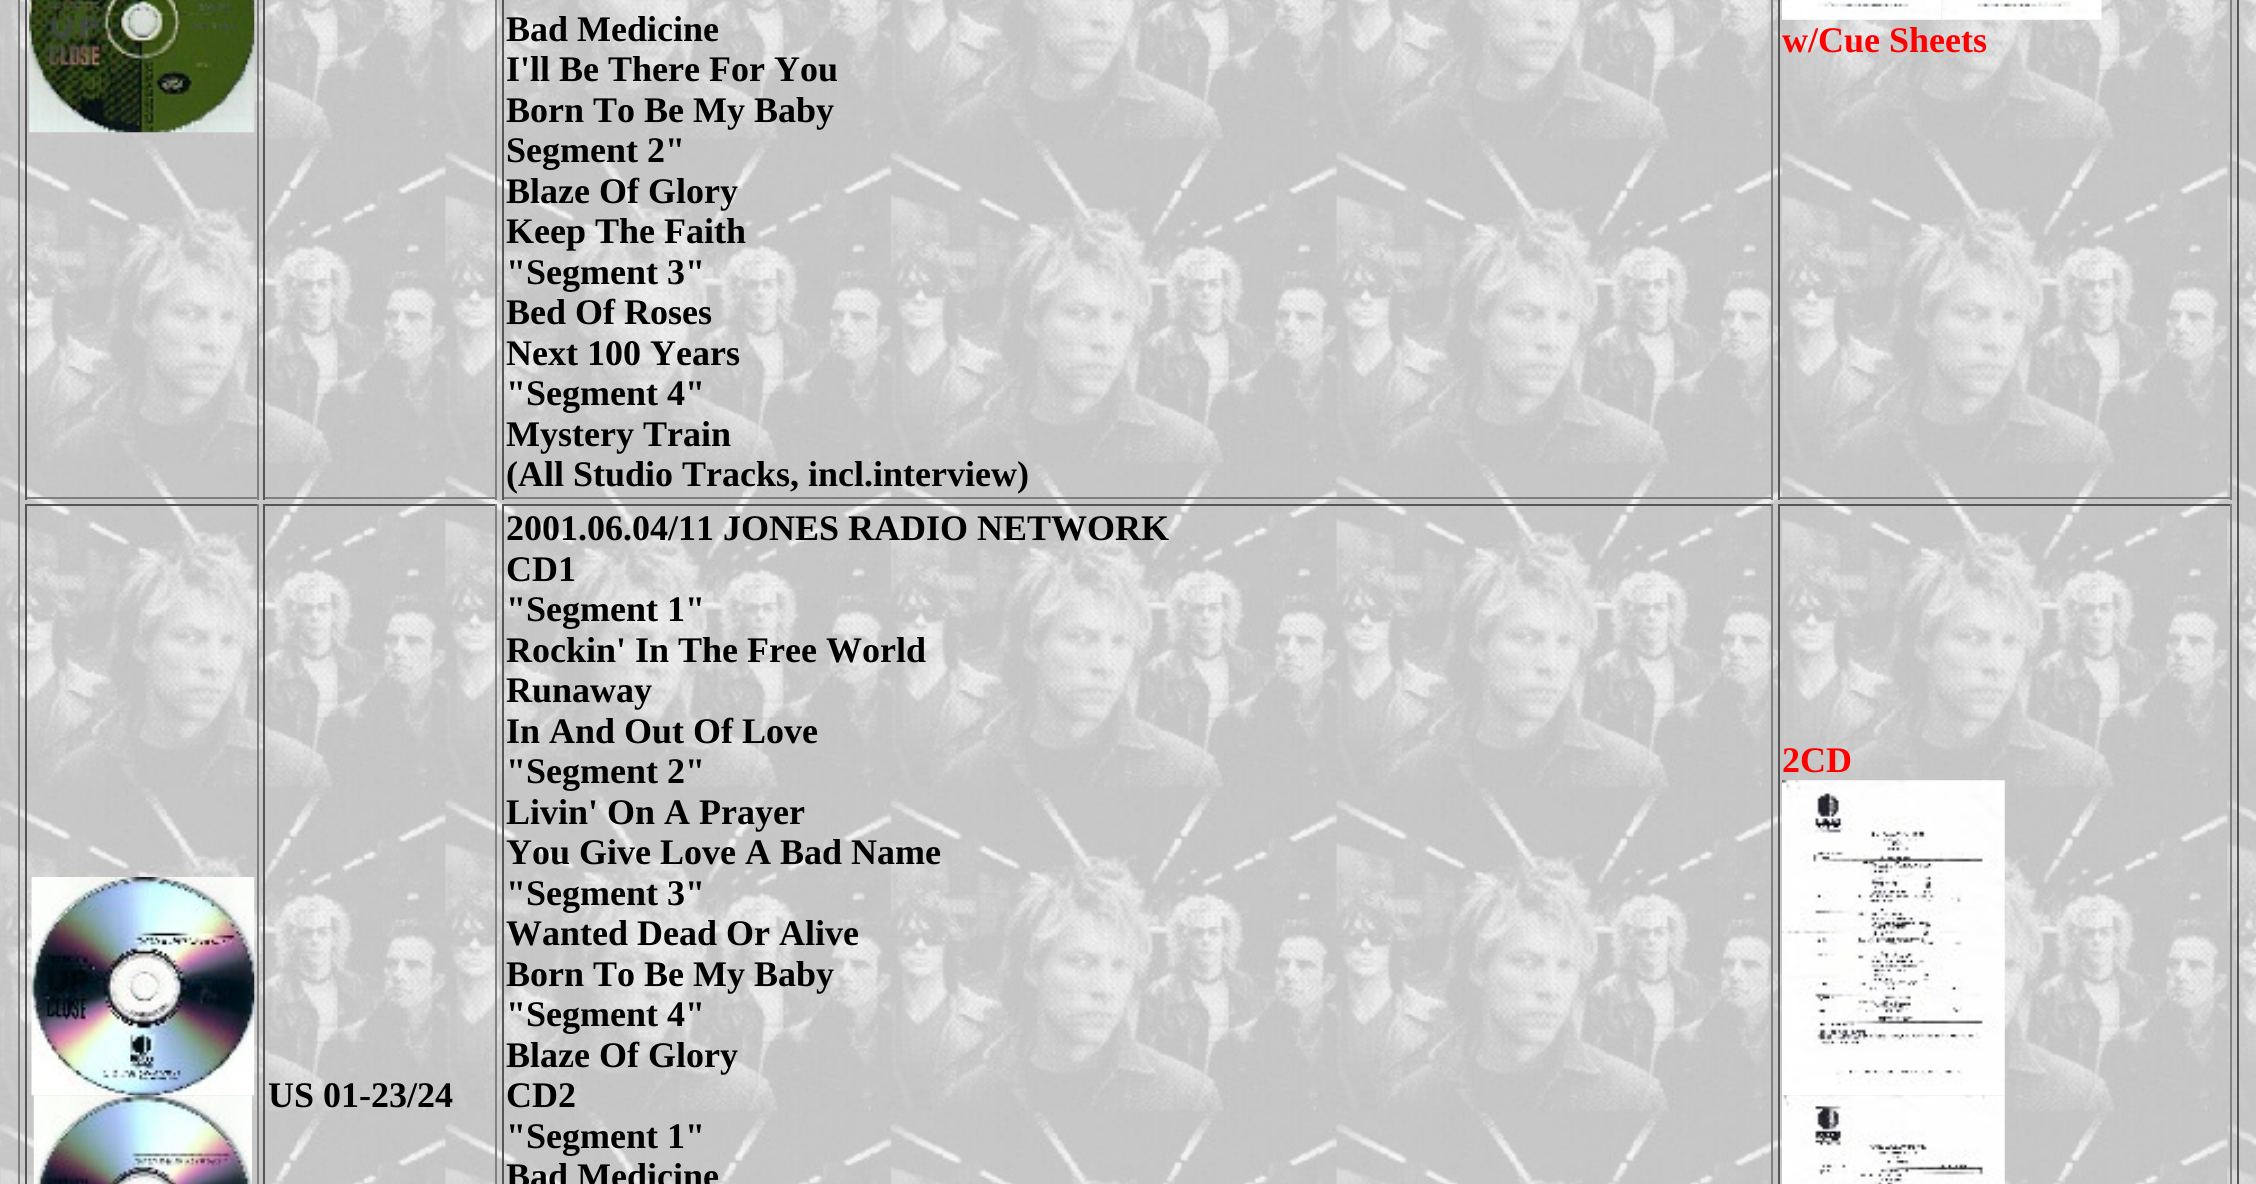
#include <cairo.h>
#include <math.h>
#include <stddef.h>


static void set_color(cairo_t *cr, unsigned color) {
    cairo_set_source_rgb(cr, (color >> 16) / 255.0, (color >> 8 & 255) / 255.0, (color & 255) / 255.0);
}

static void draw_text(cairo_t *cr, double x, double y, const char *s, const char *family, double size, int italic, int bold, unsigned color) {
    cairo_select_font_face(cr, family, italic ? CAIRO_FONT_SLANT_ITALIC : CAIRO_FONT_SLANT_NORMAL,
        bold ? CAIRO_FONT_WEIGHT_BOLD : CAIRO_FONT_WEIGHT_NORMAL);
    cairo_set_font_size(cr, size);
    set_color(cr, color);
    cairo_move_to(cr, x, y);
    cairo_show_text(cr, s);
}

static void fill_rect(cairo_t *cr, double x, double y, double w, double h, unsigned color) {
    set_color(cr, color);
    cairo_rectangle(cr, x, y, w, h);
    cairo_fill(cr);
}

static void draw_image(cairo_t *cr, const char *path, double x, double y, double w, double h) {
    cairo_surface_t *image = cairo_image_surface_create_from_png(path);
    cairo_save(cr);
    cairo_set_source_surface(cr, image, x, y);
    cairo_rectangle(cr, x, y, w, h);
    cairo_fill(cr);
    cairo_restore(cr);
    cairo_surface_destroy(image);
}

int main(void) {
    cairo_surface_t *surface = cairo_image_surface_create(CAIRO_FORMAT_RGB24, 2256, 1184);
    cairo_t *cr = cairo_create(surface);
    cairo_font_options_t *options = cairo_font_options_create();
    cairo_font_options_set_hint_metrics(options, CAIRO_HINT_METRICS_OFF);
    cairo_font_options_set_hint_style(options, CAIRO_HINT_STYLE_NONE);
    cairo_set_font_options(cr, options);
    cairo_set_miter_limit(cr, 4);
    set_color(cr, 0xFFFFFF);
    cairo_paint(cr);
    draw_image(cr, "assets/img1.png", 0, 0, 2256, 1184);
    fill_rect(cr, 2237, 0, 2, 1184, 0x555555);
    fill_rect(cr, 18, 0, 2, 1184, 0x808080);
    fill_rect(cr, 257, 0, 2, 500, 0x808080);
    fill_rect(cr, 25, 497, 234, 2, 0x808080);
    fill_rect(cr, 25, 0, 2, 500, 0x555555);
    draw_image(cr, "assets/img2.png", 29, 0, 226, 133);
    fill_rect(cr, 495, 0, 2, 500, 0x808080);
    fill_rect(cr, 263, 497, 234, 2, 0x808080);
    fill_rect(cr, 263, 0, 2, 500, 0x555555);
    fill_rect(cr, 1771, 0, 2, 500, 0x808080);
    fill_rect(cr, 502, 497, 1271, 2, 0x808080);
    fill_rect(cr, 502, 0, 2, 500, 0x555555);
    draw_text(cr, 506, 41, "Bad Medicine", "Liberation Serif", 36, 0, 1, 0x000000);
    draw_text(cr, 506, 81, "I'll Be There For You", "Liberation Serif", 36, 0, 1, 0x000000);
    draw_text(cr, 506, 122, "Born To Be My Baby", "Liberation Serif", 36, 0, 1, 0x000000);
    draw_text(cr, 506, 162, "Segment 2\"", "Liberation Serif", 36, 0, 1, 0x000000);
    draw_text(cr, 506, 203, "Blaze Of Glory", "Liberation Serif", 36, 0, 1, 0x000000);
    draw_text(cr, 506, 243, "Keep The Faith", "Liberation Serif", 36, 0, 1, 0x000000);
    draw_text(cr, 506, 284, "\"Segment 3\"", "Liberation Serif", 36, 0, 1, 0x000000);
    draw_text(cr, 506, 324, "Bed Of Roses", "Liberation Serif", 36, 0, 1, 0x000000);
    draw_text(cr, 506, 365, "Next 100 Years", "Liberation Serif", 36, 0, 1, 0x000000);
    draw_text(cr, 506, 405, "\"Segment 4\"", "Liberation Serif", 36, 0, 1, 0x000000);
    draw_text(cr, 506, 446, "Mystery Train", "Liberation Serif", 36, 0, 1, 0x000000);
    draw_text(cr, 506, 486, "(All Studio Tracks, incl.interview)", "Liberation Serif", 36, 0, 1, 0x000000);
    fill_rect(cr, 2230, 0, 2, 500, 0x808080);
    fill_rect(cr, 1778, 497, 454, 2, 0x808080);
    fill_rect(cr, 1778, 0, 2, 500, 0x555555);
    draw_image(cr, "assets/img3.png", 1782, 0, 160, 20);
    draw_image(cr, "assets/img4.png", 1942, 0, 160, 20);
    draw_text(cr, 1782, 52, "w/Cue Sheets", "Liberation Serif", 36, 0, 1, 0xFF0000);
    fill_rect(cr, 25, 504, 234, 2, 0x555555);
    fill_rect(cr, 257, 504, 2, 680, 0x808080);
    fill_rect(cr, 25, 504, 2, 680, 0x555555);
    draw_image(cr, "assets/img5.png", 31, 877, 224, 219);
    draw_image(cr, "assets/img6.png", 33, 1095, 219, 89);
    fill_rect(cr, 502, 504, 1271, 2, 0x555555);
    fill_rect(cr, 1771, 504, 2, 680, 0x808080);
    fill_rect(cr, 502, 504, 2, 680, 0x555555);
    draw_text(cr, 506, 540, "2001.06.04/11 JONES RADIO NETWORK", "Liberation Serif", 36, 0, 1, 0x000000);
    draw_text(cr, 506, 581, "CD1", "Liberation Serif", 36, 0, 1, 0x000000);
    draw_text(cr, 506, 621, "\"Segment 1\"", "Liberation Serif", 36, 0, 1, 0x000000);
    draw_text(cr, 506, 662, "Rockin' In The Free World", "Liberation Serif", 36, 0, 1, 0x000000);
    draw_text(cr, 506, 702, "Runaway", "Liberation Serif", 36, 0, 1, 0x000000);
    draw_text(cr, 506, 743, "In And Out Of Love", "Liberation Serif", 36, 0, 1, 0x000000);
    draw_text(cr, 506, 783, "\"Segment 2\"", "Liberation Serif", 36, 0, 1, 0x000000);
    draw_text(cr, 506, 824, "Livin' On A Prayer", "Liberation Serif", 36, 0, 1, 0x000000);
    draw_text(cr, 506, 864, "You Give Love A Bad Name", "Liberation Serif", 36, 0, 1, 0x000000);
    draw_text(cr, 506, 905, "\"Segment 3\"", "Liberation Serif", 36, 0, 1, 0x000000);
    draw_text(cr, 506, 945, "Wanted Dead Or Alive", "Liberation Serif", 36, 0, 1, 0x000000);
    draw_text(cr, 506, 986, "Born To Be My Baby", "Liberation Serif", 36, 0, 1, 0x000000);
    draw_text(cr, 506, 1026, "\"Segment 4\"", "Liberation Serif", 36, 0, 1, 0x000000);
    draw_text(cr, 506, 1067, "Blaze Of Glory", "Liberation Serif", 36, 0, 1, 0x000000);
    draw_text(cr, 506, 1107, "CD2", "Liberation Serif", 36, 0, 1, 0x000000);
    draw_text(cr, 506, 1148, "\"Segment 1\"", "Liberation Serif", 36, 0, 1, 0x000000);
    draw_text(cr, 506, 1188, "Bad Medicine", "Liberation Serif", 36, 0, 1, 0x000000);
    fill_rect(cr, 1778, 504, 454, 2, 0x555555);
    fill_rect(cr, 2230, 504, 2, 680, 0x808080);
    fill_rect(cr, 1778, 504, 2, 680, 0x555555);
    draw_text(cr, 1782, 772, "2CD", "Liberation Serif", 36, 0, 1, 0xFF0000);
    draw_image(cr, "assets/img7.png", 1782, 780, 223, 316);
    draw_image(cr, "assets/img8.png", 1782, 1095, 223, 89);
    fill_rect(cr, 263, 504, 234, 2, 0x555555);
    fill_rect(cr, 495, 504, 2, 680, 0x808080);
    fill_rect(cr, 263, 504, 2, 680, 0x555555);
    draw_text(cr, 268, 1107, "US 01-23/24", "Liberation Serif", 36, 0, 1, 0x000000);
    cairo_surface_write_to_png(surface, "output.png");
    cairo_font_options_destroy(options);
    cairo_destroy(cr);
    cairo_surface_destroy(surface);
    return 0;
}
